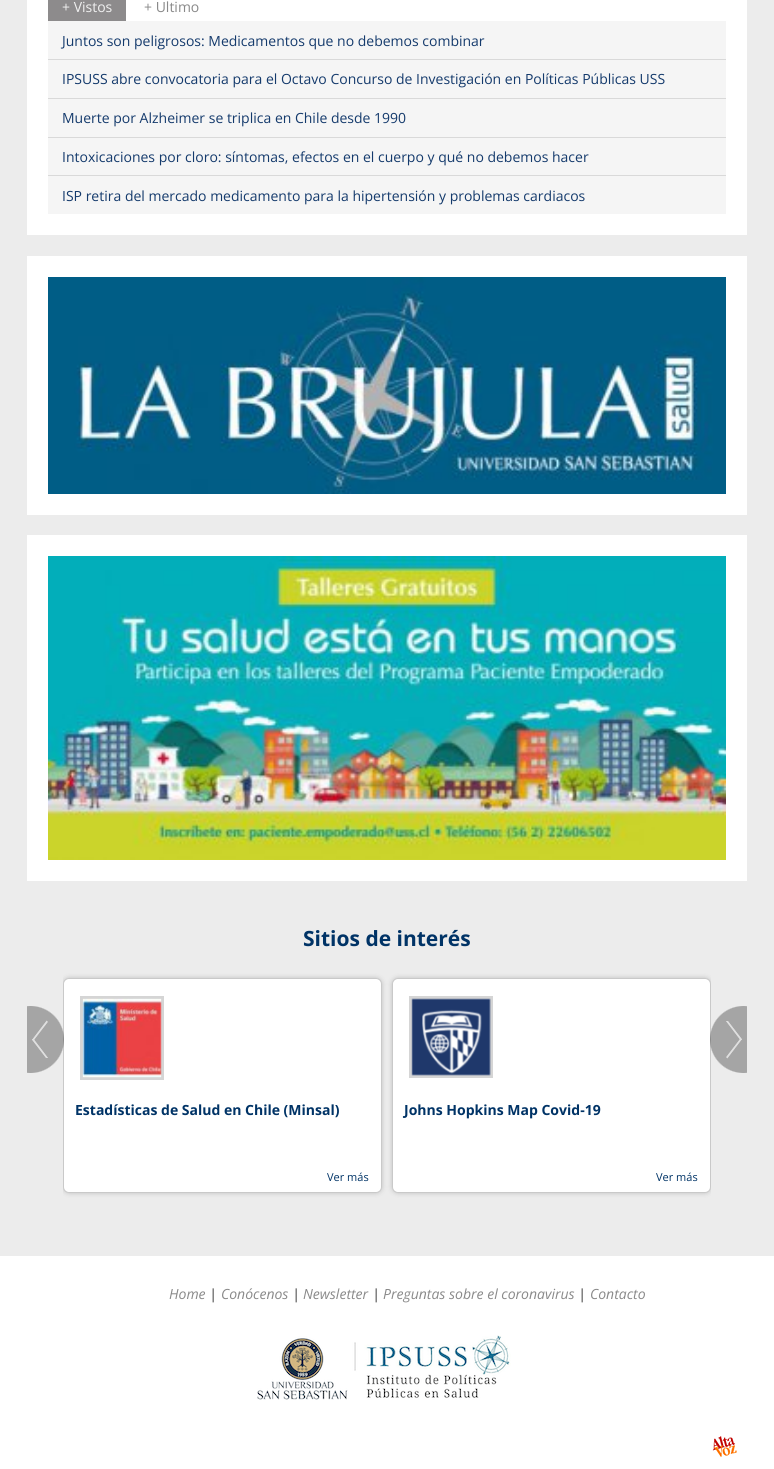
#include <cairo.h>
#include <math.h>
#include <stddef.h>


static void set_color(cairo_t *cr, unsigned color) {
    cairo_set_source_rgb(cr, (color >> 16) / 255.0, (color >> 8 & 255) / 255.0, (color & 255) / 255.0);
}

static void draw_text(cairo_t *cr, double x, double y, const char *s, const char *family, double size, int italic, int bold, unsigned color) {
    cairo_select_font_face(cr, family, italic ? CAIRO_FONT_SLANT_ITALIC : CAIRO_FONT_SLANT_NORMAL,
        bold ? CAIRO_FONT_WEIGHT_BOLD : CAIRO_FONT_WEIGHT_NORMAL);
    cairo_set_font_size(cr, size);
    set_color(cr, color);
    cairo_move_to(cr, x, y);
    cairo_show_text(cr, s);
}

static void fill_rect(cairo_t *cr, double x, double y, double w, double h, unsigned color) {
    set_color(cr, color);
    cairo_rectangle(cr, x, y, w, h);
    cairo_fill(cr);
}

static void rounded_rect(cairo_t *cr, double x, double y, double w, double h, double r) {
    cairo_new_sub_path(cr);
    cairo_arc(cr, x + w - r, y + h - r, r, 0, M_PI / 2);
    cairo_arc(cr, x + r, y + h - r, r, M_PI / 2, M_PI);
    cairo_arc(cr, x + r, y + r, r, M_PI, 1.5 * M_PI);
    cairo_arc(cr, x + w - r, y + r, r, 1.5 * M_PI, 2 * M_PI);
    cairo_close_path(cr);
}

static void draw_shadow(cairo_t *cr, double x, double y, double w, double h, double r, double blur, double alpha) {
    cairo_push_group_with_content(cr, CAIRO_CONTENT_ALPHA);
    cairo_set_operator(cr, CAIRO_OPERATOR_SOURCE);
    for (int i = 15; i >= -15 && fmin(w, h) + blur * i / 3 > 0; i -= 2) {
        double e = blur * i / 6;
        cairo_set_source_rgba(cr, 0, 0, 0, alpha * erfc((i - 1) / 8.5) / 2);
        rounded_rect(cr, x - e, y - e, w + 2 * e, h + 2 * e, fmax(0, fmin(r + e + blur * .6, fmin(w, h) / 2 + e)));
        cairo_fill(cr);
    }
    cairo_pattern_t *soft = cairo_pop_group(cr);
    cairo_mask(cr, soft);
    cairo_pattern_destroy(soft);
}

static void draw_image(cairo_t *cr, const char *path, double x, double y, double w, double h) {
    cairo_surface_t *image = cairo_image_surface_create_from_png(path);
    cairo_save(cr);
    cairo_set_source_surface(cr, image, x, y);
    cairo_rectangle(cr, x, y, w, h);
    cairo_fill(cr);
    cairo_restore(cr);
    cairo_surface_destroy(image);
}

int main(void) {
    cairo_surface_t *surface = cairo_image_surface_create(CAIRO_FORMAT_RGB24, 774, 1469);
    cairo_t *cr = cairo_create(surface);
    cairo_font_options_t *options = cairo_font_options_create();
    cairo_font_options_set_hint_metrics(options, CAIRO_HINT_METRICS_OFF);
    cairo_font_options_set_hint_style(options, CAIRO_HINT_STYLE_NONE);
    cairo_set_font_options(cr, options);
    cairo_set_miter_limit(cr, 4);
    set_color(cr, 0xECECEC);
    cairo_paint(cr);
    fill_rect(cr, 27, 0, 720, 235, 0xFFFFFF);
    fill_rect(cr, 48, 0, 78, 21, 0x8D8B8C);
    draw_text(cr, 62, 12, "+ Vistos", "Open Sans", 14, 0, 0, 0xF0F0F0);
    draw_text(cr, 144, 12, "+ Ultimo", "Open Sans", 14, 0, 0, 0x898989);
    fill_rect(cr, 48, 21, 678, 38, 0xF5F5F5);
    draw_text(cr, 62, 46, "Juntos son peligrosos: Medicamentos que no debemos combinar", "Open Sans", 14, 0, 0, 0x143A6C);
    fill_rect(cr, 48, 59, 678, 1, 0xD9D9D9);
    fill_rect(cr, 48, 60, 678, 38, 0xF5F5F5);
    draw_text(cr, 62, 84, "IPSUSS abre convocatoria para el Octavo Concurso de Investigación en Políticas Públicas USS", "Open Sans", 14, 0, 0, 0x143A6C);
    fill_rect(cr, 48, 98, 678, 1, 0xD9D9D9);
    fill_rect(cr, 48, 99, 678, 38, 0xF5F5F5);
    draw_text(cr, 62, 123, "Muerte por Alzheimer se triplica en Chile desde 1990", "Open Sans", 14, 0, 0, 0x143A6C);
    fill_rect(cr, 48, 137, 678, 1, 0xD9D9D9);
    fill_rect(cr, 48, 138, 678, 37, 0xF5F5F5);
    draw_text(cr, 62, 162, "Intoxicaciones por cloro: síntomas, efectos en el cuerpo y qué no debemos hacer", "Open Sans", 14, 0, 0, 0x143A6C);
    fill_rect(cr, 48, 175, 678, 1, 0xD9D9D9);
    fill_rect(cr, 48, 176, 678, 38, 0xF5F5F5);
    draw_text(cr, 62, 201, "ISP retira del mercado medicamento para la hipertensión y problemas cardiacos", "Open Sans", 14, 0, 0, 0x143A6C);
    fill_rect(cr, 27, 256, 720, 259, 0xFFFFFF);
    draw_image(cr, "assets/img1.png", 48, 277, 678, 217);
    fill_rect(cr, 27, 535, 720, 346, 0xFFFFFF);
    draw_image(cr, "assets/img2.png", 48, 556, 678, 304);
    draw_text(cr, 303, 946, "Sitios de interés", "Open Sans", 21, 0, 1, 0x003366);
    cairo_save(cr);
    cairo_rectangle(cr, 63, 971, 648, 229);
    cairo_clip(cr);
    set_color(cr, 0x000000);
    draw_shadow(cr, 63, 978, 319, 215, 6, 2.5, 0.2);
    cairo_restore(cr);
    set_color(cr, 0xFFFFFF);
    rounded_rect(cr, 63.5, 978.5, 318, 214, 5.5);
    cairo_fill_preserve(cr);
    set_color(cr, 0xC9C9C9);
    cairo_set_line_width(cr, 1);
    cairo_stroke(cr);
    draw_image(cr, "assets/img3.png", 27, 1006, 37, 67);
    cairo_save(cr);
    cairo_rectangle(cr, 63, 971, 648, 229);
    cairo_clip(cr);
    set_color(cr, 0x000000);
    draw_shadow(cr, 392, 978, 319, 215, 6, 2.5, 0.2);
    cairo_restore(cr);
    set_color(cr, 0xFFFFFF);
    rounded_rect(cr, 392.5, 978.5, 318, 214, 5.5);
    cairo_fill_preserve(cr);
    set_color(cr, 0xC9C9C9);
    cairo_stroke(cr);
    draw_image(cr, "assets/img4.png", 710, 1006, 37, 67);
    cairo_rectangle(cr, 81.5, 997.5, 81, 81);
    set_color(cr, 0xD5D5D5);
    cairo_set_line_width(cr, 3);
    cairo_stroke(cr);
    draw_image(cr, "assets/img5.png", 82, 998, 80, 80);
    draw_text(cr, 75, 1115, "Estadísticas de Salud en Chile (Minsal)", "Open Sans", 14, 0, 1, 0x003366);
    draw_text(cr, 327, 1181, "Ver más", "Open Sans", 11, 0, 0, 0x003366);
    cairo_rectangle(cr, 410.5, 997.5, 81, 79);
    set_color(cr, 0xD5D5D5);
    cairo_stroke(cr);
    draw_image(cr, "assets/img6.png", 411, 998, 80, 78);
    draw_text(cr, 404, 1115, "Johns Hopkins Map Covid-19", "Open Sans", 14, 0, 1, 0x003366);
    draw_text(cr, 656, 1181, "Ver más", "Open Sans", 11, 0, 0, 0x003366);
    fill_rect(cr, 0, 1256, 774, 213, 0xFFFFFF);
    draw_text(cr, 169, 1299, "Home", "Open Sans", 14, 1, 0, 0x898989);
    draw_text(cr, 209, 1299, "|", "Open Sans", 14, 1, 0, 0x333333);
    draw_text(cr, 221, 1299, "Conócenos", "Open Sans", 14, 1, 0, 0x898989);
    draw_text(cr, 292, 1299, "|", "Open Sans", 14, 1, 0, 0x333333);
    draw_text(cr, 303, 1299, "Newsletter", "Open Sans", 14, 1, 0, 0x898989);
    draw_text(cr, 372, 1299, "|", "Open Sans", 14, 1, 0, 0x333333);
    draw_text(cr, 383, 1299, "Preguntas sobre el coronavirus", "Open Sans", 14, 1, 0, 0x898989);
    draw_text(cr, 578, 1299, "|", "Open Sans", 14, 1, 0, 0x333333);
    draw_text(cr, 590, 1299, "Contacto", "Open Sans", 14, 1, 0, 0x898989);
    draw_image(cr, "assets/img7.png", 257, 1335, 254, 65);
    draw_image(cr, "assets/img8.png", 712, 1436, 25, 21);
    cairo_surface_write_to_png(surface, "output.png");
    cairo_font_options_destroy(options);
    cairo_destroy(cr);
    cairo_surface_destroy(surface);
    return 0;
}
